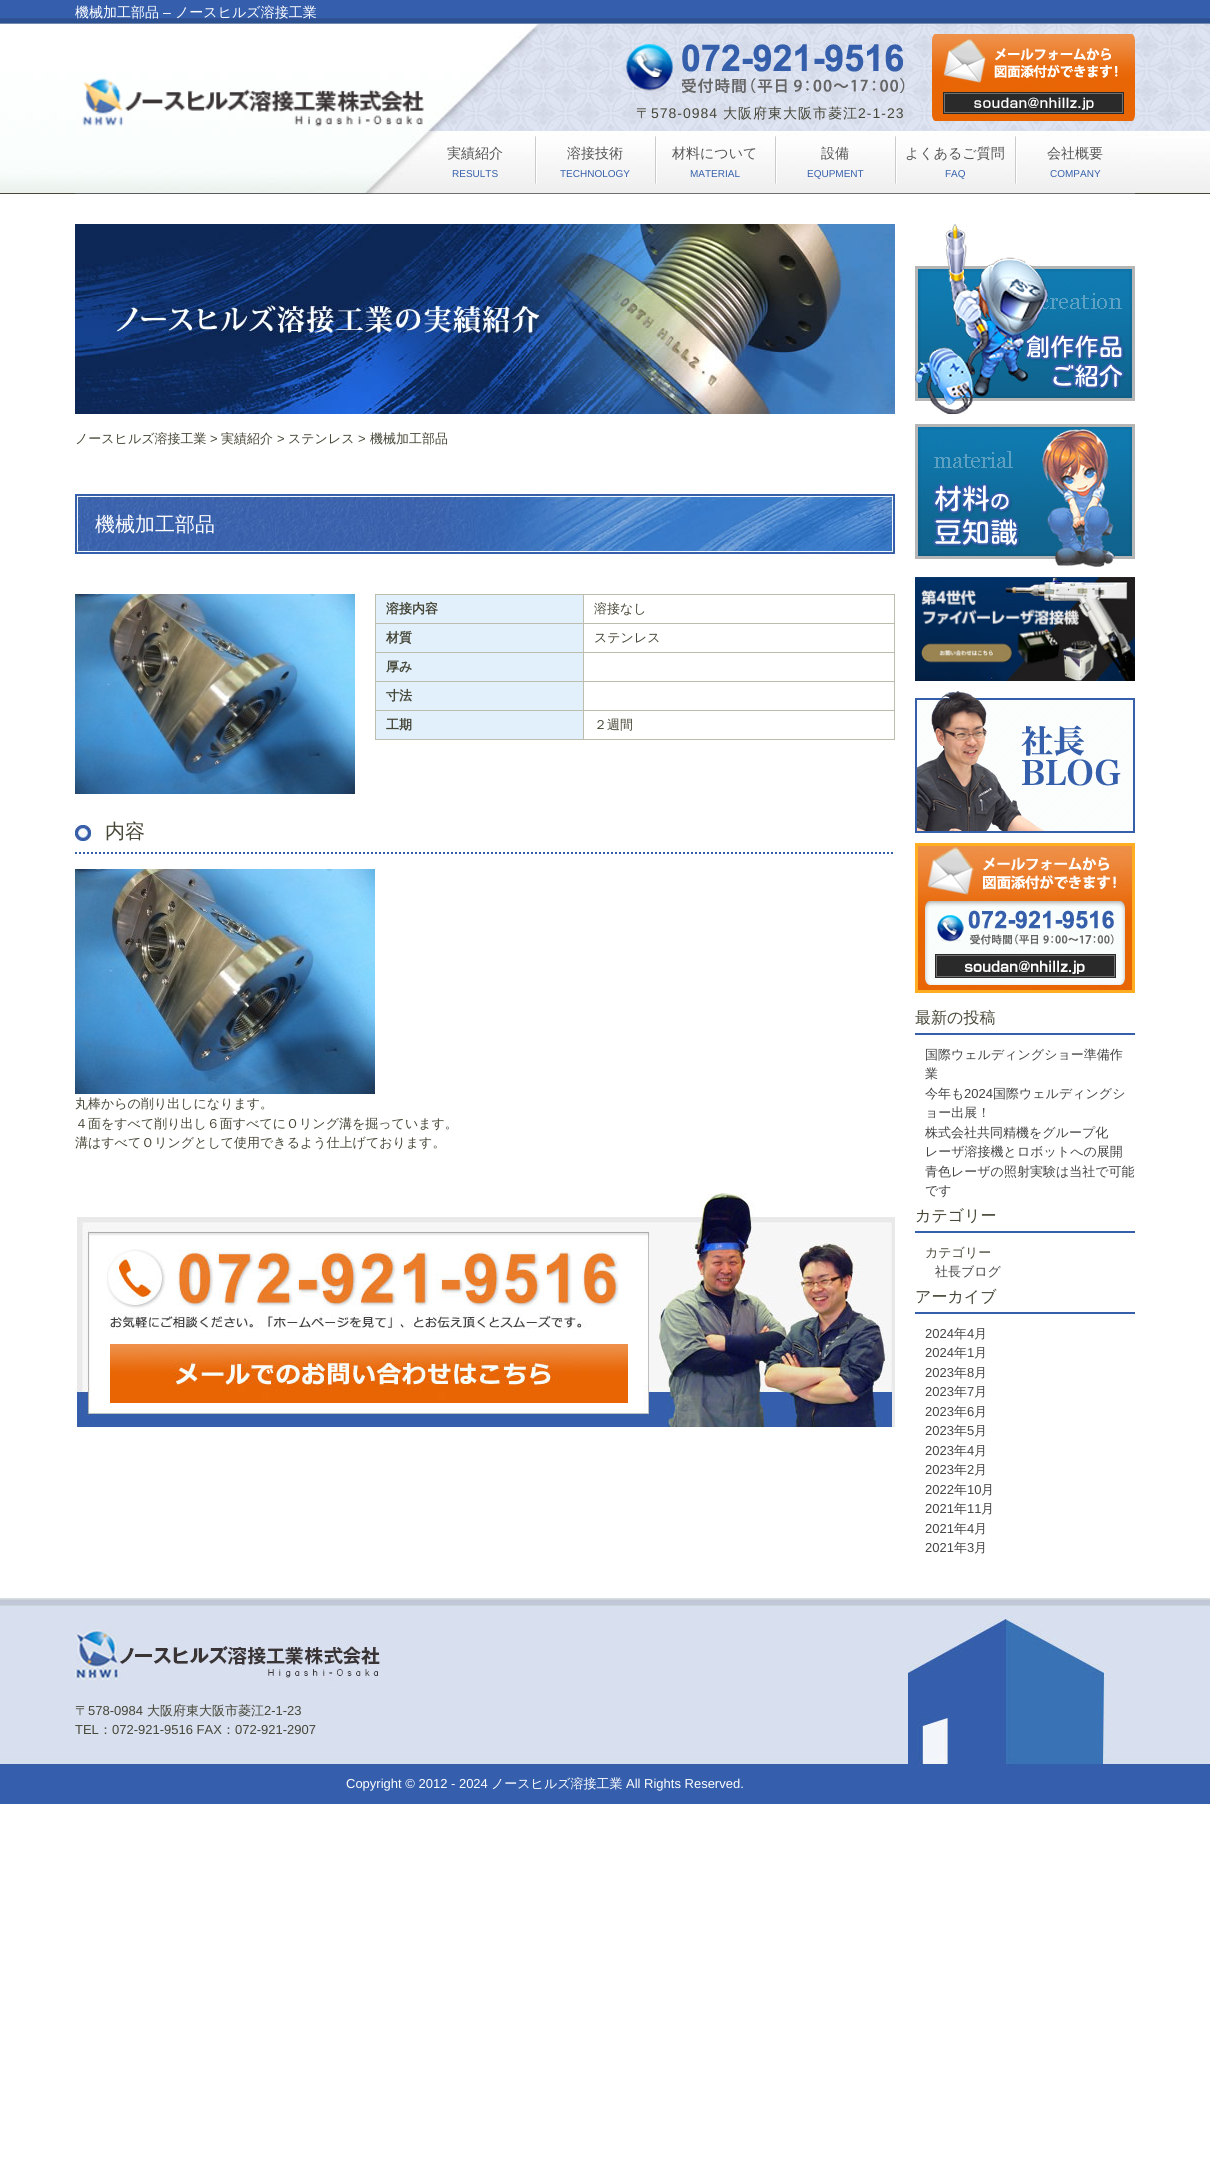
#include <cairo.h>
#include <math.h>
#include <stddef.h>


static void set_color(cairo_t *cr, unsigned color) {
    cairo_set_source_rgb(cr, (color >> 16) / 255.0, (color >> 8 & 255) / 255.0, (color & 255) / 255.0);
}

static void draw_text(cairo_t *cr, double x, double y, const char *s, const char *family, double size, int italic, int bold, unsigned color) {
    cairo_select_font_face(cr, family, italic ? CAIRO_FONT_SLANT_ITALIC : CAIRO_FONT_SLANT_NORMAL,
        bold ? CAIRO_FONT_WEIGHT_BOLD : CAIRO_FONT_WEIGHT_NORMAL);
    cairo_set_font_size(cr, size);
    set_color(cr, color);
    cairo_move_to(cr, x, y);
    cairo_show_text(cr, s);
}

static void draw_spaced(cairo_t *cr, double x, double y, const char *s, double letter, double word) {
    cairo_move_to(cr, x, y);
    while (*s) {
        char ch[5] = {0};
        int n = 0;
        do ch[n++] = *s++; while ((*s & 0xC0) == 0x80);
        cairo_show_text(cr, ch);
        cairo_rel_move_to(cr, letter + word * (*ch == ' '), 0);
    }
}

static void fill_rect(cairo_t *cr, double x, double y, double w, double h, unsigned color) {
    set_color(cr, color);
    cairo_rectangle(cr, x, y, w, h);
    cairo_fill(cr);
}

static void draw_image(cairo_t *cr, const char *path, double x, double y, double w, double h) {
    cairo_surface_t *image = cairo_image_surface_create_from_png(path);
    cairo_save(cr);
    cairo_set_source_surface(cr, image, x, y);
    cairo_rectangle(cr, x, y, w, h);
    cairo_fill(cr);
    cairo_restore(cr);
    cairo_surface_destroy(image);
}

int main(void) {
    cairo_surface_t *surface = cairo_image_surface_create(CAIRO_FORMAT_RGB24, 1210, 2165);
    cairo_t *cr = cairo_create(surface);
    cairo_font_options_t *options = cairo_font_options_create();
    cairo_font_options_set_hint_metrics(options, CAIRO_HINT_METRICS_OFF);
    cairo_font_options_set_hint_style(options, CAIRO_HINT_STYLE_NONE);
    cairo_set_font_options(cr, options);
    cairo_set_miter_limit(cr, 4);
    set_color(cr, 0xFFFFFF);
    cairo_paint(cr);
    draw_image(cr, "assets/img1.png", 0, 0, 1210, 24);
    draw_text(cr, 75, 17, "機械加工部品", "WenQuanYi Zen Hei Medium", 14, 0, 0, 0xFFFFFF);
    draw_text(cr, 163, 17, "–", "Liberation Sans", 14, 0, 0, 0xFFFFFF);
    draw_text(cr, 175, 17, "ノースヒルズ溶接工業", "WenQuanYi Zen Hei Medium", 14, 0, 0, 0xFFFFFF);
    draw_image(cr, "assets/img2.png", 0, 24, 1210, 169);
    fill_rect(cr, 0, 193, 1210, 1, 0x464637);
    draw_image(cr, "assets/img3.png", 75, 24, 1060, 170);
    draw_image(cr, "assets/img4.png", 82, 78, 342, 49);
    draw_image(cr, "assets/img5.png", 626, 44, 279, 49);
    draw_spaced(cr, 636, 118, "〒", 1, 0);
    cairo_select_font_face(cr, "Liberation Sans", CAIRO_FONT_SLANT_NORMAL, CAIRO_FONT_WEIGHT_NORMAL);
    draw_spaced(cr, 651, 118, "578-0984", 1, 0);
    cairo_select_font_face(cr, "WenQuanYi Zen Hei Medium", CAIRO_FONT_SLANT_NORMAL, CAIRO_FONT_WEIGHT_NORMAL);
    draw_spaced(cr, 723, 118, "大阪府東大阪市菱江", 1, 0);
    cairo_select_font_face(cr, "Liberation Sans", CAIRO_FONT_SLANT_NORMAL, CAIRO_FONT_WEIGHT_NORMAL);
    draw_spaced(cr, 858, 118, "2-1-23", 1, 0);
    draw_image(cr, "assets/img6.png", 932, 34, 203, 87);
    draw_text(cr, 447, 158, "実績紹介", "WenQuanYi Zen Hei Medium", 14, 0, 0, 0x555555);
    draw_text(cr, 452, 177, "RESULTS", "Liberation Sans", 10, 0, 0, 0x355FAB);
    draw_image(cr, "assets/img7.png", 535, 136, 2, 48);
    draw_text(cr, 567, 158, "溶接技術", "WenQuanYi Zen Hei Medium", 14, 0, 0, 0x555555);
    draw_text(cr, 560, 177, "TECHNOLOGY", "Liberation Sans", 10, 0, 0, 0x355FAB);
    draw_image(cr, "assets/img7.png", 655, 136, 2, 48);
    draw_text(cr, 672, 158, "材料について", "WenQuanYi Zen Hei Medium", 14, 0, 0, 0x555555);
    draw_text(cr, 690, 177, "MATERIAL", "Liberation Sans", 10, 0, 0, 0x355FAB);
    draw_image(cr, "assets/img7.png", 775, 136, 2, 48);
    draw_text(cr, 821, 158, "設備", "WenQuanYi Zen Hei Medium", 14, 0, 0, 0x555555);
    draw_text(cr, 807, 177, "EQUPMENT", "Liberation Sans", 10, 0, 0, 0x355FAB);
    draw_image(cr, "assets/img7.png", 895, 136, 2, 48);
    draw_text(cr, 905, 158, "よくあるご質問", "WenQuanYi Zen Hei Medium", 14, 0, 0, 0x555555);
    draw_text(cr, 945, 177, "FAQ", "Liberation Sans", 10, 0, 0, 0x355FAB);
    draw_image(cr, "assets/img7.png", 1015, 136, 2, 48);
    draw_text(cr, 1047, 158, "会社概要", "WenQuanYi Zen Hei Medium", 14, 0, 0, 0x555555);
    draw_text(cr, 1050, 177, "COMPANY", "Liberation Sans", 10, 0, 0, 0x355FAB);
    draw_image(cr, "assets/img8.png", 75, 224, 820, 190);
    draw_text(cr, 75, 443, "ノースヒルズ溶接工業", "WenQuanYi Zen Hei Medium", 13, 0, 0, 0x464637);
    draw_text(cr, 210, 443, ">", "Liberation Sans", 13, 0, 0, 0x464637);
    draw_text(cr, 221, 443, "実績紹介", "WenQuanYi Zen Hei Medium", 13, 0, 0, 0x464637);
    draw_text(cr, 277, 443, ">", "Liberation Sans", 13, 0, 0, 0x464637);
    draw_text(cr, 288, 443, "ステンレス", "WenQuanYi Zen Hei Medium", 13, 0, 0, 0x464637);
    draw_text(cr, 358, 443, ">", "Liberation Sans", 13, 0, 0, 0x464637);
    draw_text(cr, 370, 443, "機械加工部品", "WenQuanYi Zen Hei Medium", 13, 0, 0, 0x464637);
    draw_image(cr, "assets/img9.png", 75, 494, 820, 60);
    draw_text(cr, 95, 531, "機械加工部品", "WenQuanYi Zen Hei Medium", 20, 0, 0, 0xFFFFFF);
    draw_image(cr, "assets/img10.png", 75, 594, 280, 200);
    fill_rect(cr, 375, 594, 520, 1, 0xBDBDAE);
    fill_rect(cr, 894, 594, 1, 146, 0xBDBDAE);
    fill_rect(cr, 375, 739, 520, 1, 0xBDBDAE);
    fill_rect(cr, 375, 594, 1, 146, 0xBDBDAE);
    fill_rect(cr, 376, 595, 207, 28, 0xE1F0FB);
    draw_text(cr, 386, 613, "溶接内容", "WenQuanYi Zen Hei", 13, 0, 1, 0x464637);
    fill_rect(cr, 583, 623, 312, 1, 0xBDBDAE);
    fill_rect(cr, 583, 652, 312, 1, 0xBDBDAE);
    fill_rect(cr, 583, 681, 312, 1, 0xBDBDAE);
    fill_rect(cr, 583, 710, 312, 1, 0xBDBDAE);
    fill_rect(cr, 583, 710, 1, 30, 0xBDBDAE);
    fill_rect(cr, 375, 710, 209, 1, 0xBDBDAE);
    fill_rect(cr, 583, 681, 1, 30, 0xBDBDAE);
    fill_rect(cr, 375, 681, 209, 1, 0xBDBDAE);
    fill_rect(cr, 583, 652, 1, 30, 0xBDBDAE);
    fill_rect(cr, 375, 652, 209, 1, 0xBDBDAE);
    fill_rect(cr, 583, 623, 1, 30, 0xBDBDAE);
    fill_rect(cr, 375, 623, 209, 1, 0xBDBDAE);
    fill_rect(cr, 583, 594, 1, 30, 0xBDBDAE);
    draw_text(cr, 594, 613, "溶接なし", "WenQuanYi Zen Hei Medium", 13, 0, 0, 0x464637);
    fill_rect(cr, 376, 624, 207, 28, 0xE1F0FB);
    draw_text(cr, 386, 642, "材質", "WenQuanYi Zen Hei", 13, 0, 1, 0x464637);
    draw_text(cr, 594, 642, "ステンレス", "WenQuanYi Zen Hei Medium", 13, 0, 0, 0x464637);
    fill_rect(cr, 376, 653, 207, 28, 0xE1F0FB);
    draw_text(cr, 386, 671, "厚み", "WenQuanYi Zen Hei", 13, 0, 1, 0x464637);
    fill_rect(cr, 376, 682, 207, 28, 0xE1F0FB);
    draw_text(cr, 386, 700, "寸法", "WenQuanYi Zen Hei", 13, 0, 1, 0x464637);
    fill_rect(cr, 376, 711, 207, 28, 0xE1F0FB);
    draw_text(cr, 386, 729, "工期", "WenQuanYi Zen Hei", 13, 0, 1, 0x464637);
    draw_text(cr, 594, 729, "２週間", "WenQuanYi Zen Hei Medium", 13, 0, 0, 0x464637);
    draw_image(cr, "assets/img11.png", 75, 825, 16, 16);
    cairo_new_path(cr);
    cairo_move_to(cr, 75, 853);
    cairo_line_to(cr, 895, 853);
    set_color(cr, 0x355FAB);
    cairo_set_dash(cr, (double[]){2, 2}, 2, 0);
    cairo_stroke(cr);
    draw_text(cr, 105, 838, "内容", "WenQuanYi Zen Hei Medium", 20, 0, 0, 0x464637);
    draw_image(cr, "assets/img12.png", 75, 869, 300, 225);
    draw_text(cr, 75, 1108, "丸棒からの削り出しになります。", "WenQuanYi Zen Hei Medium", 13, 0, 0, 0x464637);
    draw_text(cr, 75, 1128, "４面をすべて削り出し６面すべてにＯリング溝を掘っています。", "WenQuanYi Zen Hei Medium", 13, 0, 0, 0x464637);
    draw_text(cr, 75, 1147, "溝はすべてＯリングとして使用できるよう仕上げております。", "WenQuanYi Zen Hei Medium", 13, 0, 0, 0x464637);
    draw_image(cr, "assets/img13.png", 75, 1193, 820, 235);
    draw_image(cr, "assets/img14.png", 110, 1344, 518, 59);
    draw_image(cr, "assets/img15.png", 915, 224, 220, 190);
    draw_image(cr, "assets/img16.png", 915, 424, 220, 143);
    draw_image(cr, "assets/img17.png", 915, 577, 220, 104);
    draw_image(cr, "assets/img18.png", 915, 691, 220, 142);
    draw_image(cr, "assets/img19.png", 915, 843, 220, 150);
    fill_rect(cr, 915, 1033, 220, 2, 0x355FAB);
    draw_text(cr, 915, 1023, "最新の投稿", "WenQuanYi Zen Hei Medium", 16, 0, 0, 0x464637);
    draw_text(cr, 925, 1059, "国際ウェルディングショー準備作", "WenQuanYi Zen Hei Medium", 13, 0, 0, 0x444444);
    draw_text(cr, 925, 1078, "業", "WenQuanYi Zen Hei Medium", 13, 0, 0, 0x444444);
    draw_text(cr, 925, 1098, "今年も", "WenQuanYi Zen Hei Medium", 13, 0, 0, 0x444444);
    draw_text(cr, 964, 1098, "2024", "Liberation Sans", 13, 0, 0, 0x444444);
    draw_text(cr, 993, 1098, "国際ウェルディングシ", "WenQuanYi Zen Hei Medium", 13, 0, 0, 0x444444);
    draw_text(cr, 925, 1117, "ョー出展！", "WenQuanYi Zen Hei Medium", 13, 0, 0, 0x444444);
    draw_text(cr, 925, 1137, "株式会社共同精機をグループ化", "WenQuanYi Zen Hei Medium", 13, 0, 0, 0x444444);
    draw_text(cr, 925, 1156, "レーザ溶接機とロボットへの展開", "WenQuanYi Zen Hei Medium", 13, 0, 0, 0x444444);
    draw_text(cr, 925, 1176, "青色レーザの照射実験は当社で可能", "WenQuanYi Zen Hei Medium", 13, 0, 0, 0x444444);
    draw_text(cr, 925, 1195, "です", "WenQuanYi Zen Hei Medium", 13, 0, 0, 0x444444);
    fill_rect(cr, 915, 1231, 220, 2, 0x355FAB);
    draw_text(cr, 915, 1221, "カテゴリー", "WenQuanYi Zen Hei Medium", 16, 0, 0, 0x464637);
    draw_text(cr, 925, 1257, "カテゴリー", "WenQuanYi Zen Hei Medium", 13, 0, 0, 0x464637);
    draw_text(cr, 935, 1276, "社長ブログ", "WenQuanYi Zen Hei Medium", 13, 0, 0, 0x444444);
    fill_rect(cr, 915, 1312, 220, 2, 0x355FAB);
    draw_text(cr, 915, 1302, "アーカイブ", "WenQuanYi Zen Hei Medium", 16, 0, 0, 0x464637);
    draw_text(cr, 925, 1338, "2024", "Liberation Sans", 13, 0, 0, 0x444444);
    draw_text(cr, 954, 1338, "年", "WenQuanYi Zen Hei Medium", 13, 0, 0, 0x444444);
    draw_text(cr, 967, 1338, "4", "Liberation Sans", 13, 0, 0, 0x444444);
    draw_text(cr, 974, 1338, "月", "WenQuanYi Zen Hei Medium", 13, 0, 0, 0x444444);
    draw_text(cr, 925, 1357, "2024", "Liberation Sans", 13, 0, 0, 0x444444);
    draw_text(cr, 954, 1357, "年", "WenQuanYi Zen Hei Medium", 13, 0, 0, 0x444444);
    draw_text(cr, 967, 1357, "1", "Liberation Sans", 13, 0, 0, 0x444444);
    draw_text(cr, 974, 1357, "月", "WenQuanYi Zen Hei Medium", 13, 0, 0, 0x444444);
    draw_text(cr, 925, 1377, "2023", "Liberation Sans", 13, 0, 0, 0x444444);
    draw_text(cr, 954, 1377, "年", "WenQuanYi Zen Hei Medium", 13, 0, 0, 0x444444);
    draw_text(cr, 967, 1377, "8", "Liberation Sans", 13, 0, 0, 0x444444);
    draw_text(cr, 974, 1377, "月", "WenQuanYi Zen Hei Medium", 13, 0, 0, 0x444444);
    draw_text(cr, 925, 1396, "2023", "Liberation Sans", 13, 0, 0, 0x444444);
    draw_text(cr, 954, 1396, "年", "WenQuanYi Zen Hei Medium", 13, 0, 0, 0x444444);
    draw_text(cr, 967, 1396, "7", "Liberation Sans", 13, 0, 0, 0x444444);
    draw_text(cr, 974, 1396, "月", "WenQuanYi Zen Hei Medium", 13, 0, 0, 0x444444);
    draw_text(cr, 925, 1416, "2023", "Liberation Sans", 13, 0, 0, 0x444444);
    draw_text(cr, 954, 1416, "年", "WenQuanYi Zen Hei Medium", 13, 0, 0, 0x444444);
    draw_text(cr, 967, 1416, "6", "Liberation Sans", 13, 0, 0, 0x444444);
    draw_text(cr, 974, 1416, "月", "WenQuanYi Zen Hei Medium", 13, 0, 0, 0x444444);
    draw_text(cr, 925, 1435, "2023", "Liberation Sans", 13, 0, 0, 0x444444);
    draw_text(cr, 954, 1435, "年", "WenQuanYi Zen Hei Medium", 13, 0, 0, 0x444444);
    draw_text(cr, 967, 1435, "5", "Liberation Sans", 13, 0, 0, 0x444444);
    draw_text(cr, 974, 1435, "月", "WenQuanYi Zen Hei Medium", 13, 0, 0, 0x444444);
    draw_text(cr, 925, 1455, "2023", "Liberation Sans", 13, 0, 0, 0x444444);
    draw_text(cr, 954, 1455, "年", "WenQuanYi Zen Hei Medium", 13, 0, 0, 0x444444);
    draw_text(cr, 967, 1455, "4", "Liberation Sans", 13, 0, 0, 0x444444);
    draw_text(cr, 974, 1455, "月", "WenQuanYi Zen Hei Medium", 13, 0, 0, 0x444444);
    draw_text(cr, 925, 1474, "2023", "Liberation Sans", 13, 0, 0, 0x444444);
    draw_text(cr, 954, 1474, "年", "WenQuanYi Zen Hei Medium", 13, 0, 0, 0x444444);
    draw_text(cr, 967, 1474, "2", "Liberation Sans", 13, 0, 0, 0x444444);
    draw_text(cr, 974, 1474, "月", "WenQuanYi Zen Hei Medium", 13, 0, 0, 0x444444);
    draw_text(cr, 925, 1494, "2022", "Liberation Sans", 13, 0, 0, 0x444444);
    draw_text(cr, 954, 1494, "年", "WenQuanYi Zen Hei Medium", 13, 0, 0, 0x444444);
    draw_text(cr, 967, 1494, "10", "Liberation Sans", 13, 0, 0, 0x444444);
    draw_text(cr, 981, 1494, "月", "WenQuanYi Zen Hei Medium", 13, 0, 0, 0x444444);
    draw_text(cr, 925, 1513, "2021", "Liberation Sans", 13, 0, 0, 0x444444);
    draw_text(cr, 954, 1513, "年", "WenQuanYi Zen Hei Medium", 13, 0, 0, 0x444444);
    draw_text(cr, 967, 1513, "11", "Liberation Sans", 13, 0, 0, 0x444444);
    draw_text(cr, 981, 1513, "月", "WenQuanYi Zen Hei Medium", 13, 0, 0, 0x444444);
    draw_text(cr, 925, 1533, "2021", "Liberation Sans", 13, 0, 0, 0x444444);
    draw_text(cr, 954, 1533, "年", "WenQuanYi Zen Hei Medium", 13, 0, 0, 0x444444);
    draw_text(cr, 967, 1533, "4", "Liberation Sans", 13, 0, 0, 0x444444);
    draw_text(cr, 974, 1533, "月", "WenQuanYi Zen Hei Medium", 13, 0, 0, 0x444444);
    draw_text(cr, 925, 1552, "2021", "Liberation Sans", 13, 0, 0, 0x444444);
    draw_text(cr, 954, 1552, "年", "WenQuanYi Zen Hei Medium", 13, 0, 0, 0x444444);
    draw_text(cr, 967, 1552, "3", "Liberation Sans", 13, 0, 0, 0x444444);
    draw_text(cr, 974, 1552, "月", "WenQuanYi Zen Hei Medium", 13, 0, 0, 0x444444);
    draw_image(cr, "assets/img20.png", 0, 1598, 1210, 206);
    draw_image(cr, "assets/img21.png", 75, 1626, 305, 56);
    draw_text(cr, 75, 1715, "〒", "WenQuanYi Zen Hei Medium", 13, 0, 0, 0x464637);
    draw_text(cr, 88, 1715, "578-0984", "Liberation Sans", 13, 0, 0, 0x464637);
    draw_text(cr, 147, 1715, "大阪府東大阪市菱江", "WenQuanYi Zen Hei Medium", 13, 0, 0, 0x464637);
    draw_text(cr, 264, 1715, "2-1-23", "Liberation Sans", 13, 0, 0, 0x464637);
    draw_text(cr, 75, 1734, "TEL", "Liberation Sans", 13, 0, 0, 0x464637);
    draw_text(cr, 99, 1734, "：", "WenQuanYi Zen Hei Medium", 13, 0, 0, 0x464637);
    draw_text(cr, 112, 1734, "072-921-9516 FAX", "Liberation Sans", 13, 0, 0, 0x464637);
    draw_text(cr, 222, 1734, "：", "WenQuanYi Zen Hei Medium", 13, 0, 0, 0x464637);
    draw_text(cr, 235, 1734, "072-921-2907", "Liberation Sans", 13, 0, 0, 0x464637);
    draw_image(cr, "assets/img22.png", 908, 1614, 197, 152);
    draw_text(cr, 346, 1788, "Copyright © 2012 - 2024", "Liberation Sans", 13, 0, 0, 0xFFFFFF);
    draw_text(cr, 491, 1788, "ノースヒルズ溶接工業", "WenQuanYi Zen Hei Medium", 13, 0, 0, 0xFFFFFF);
    draw_text(cr, 626, 1788, "All Rights Reserved.", "Liberation Sans", 13, 0, 0, 0xFFFFFF);
    cairo_surface_write_to_png(surface, "output.png");
    cairo_font_options_destroy(options);
    cairo_destroy(cr);
    cairo_surface_destroy(surface);
    return 0;
}
